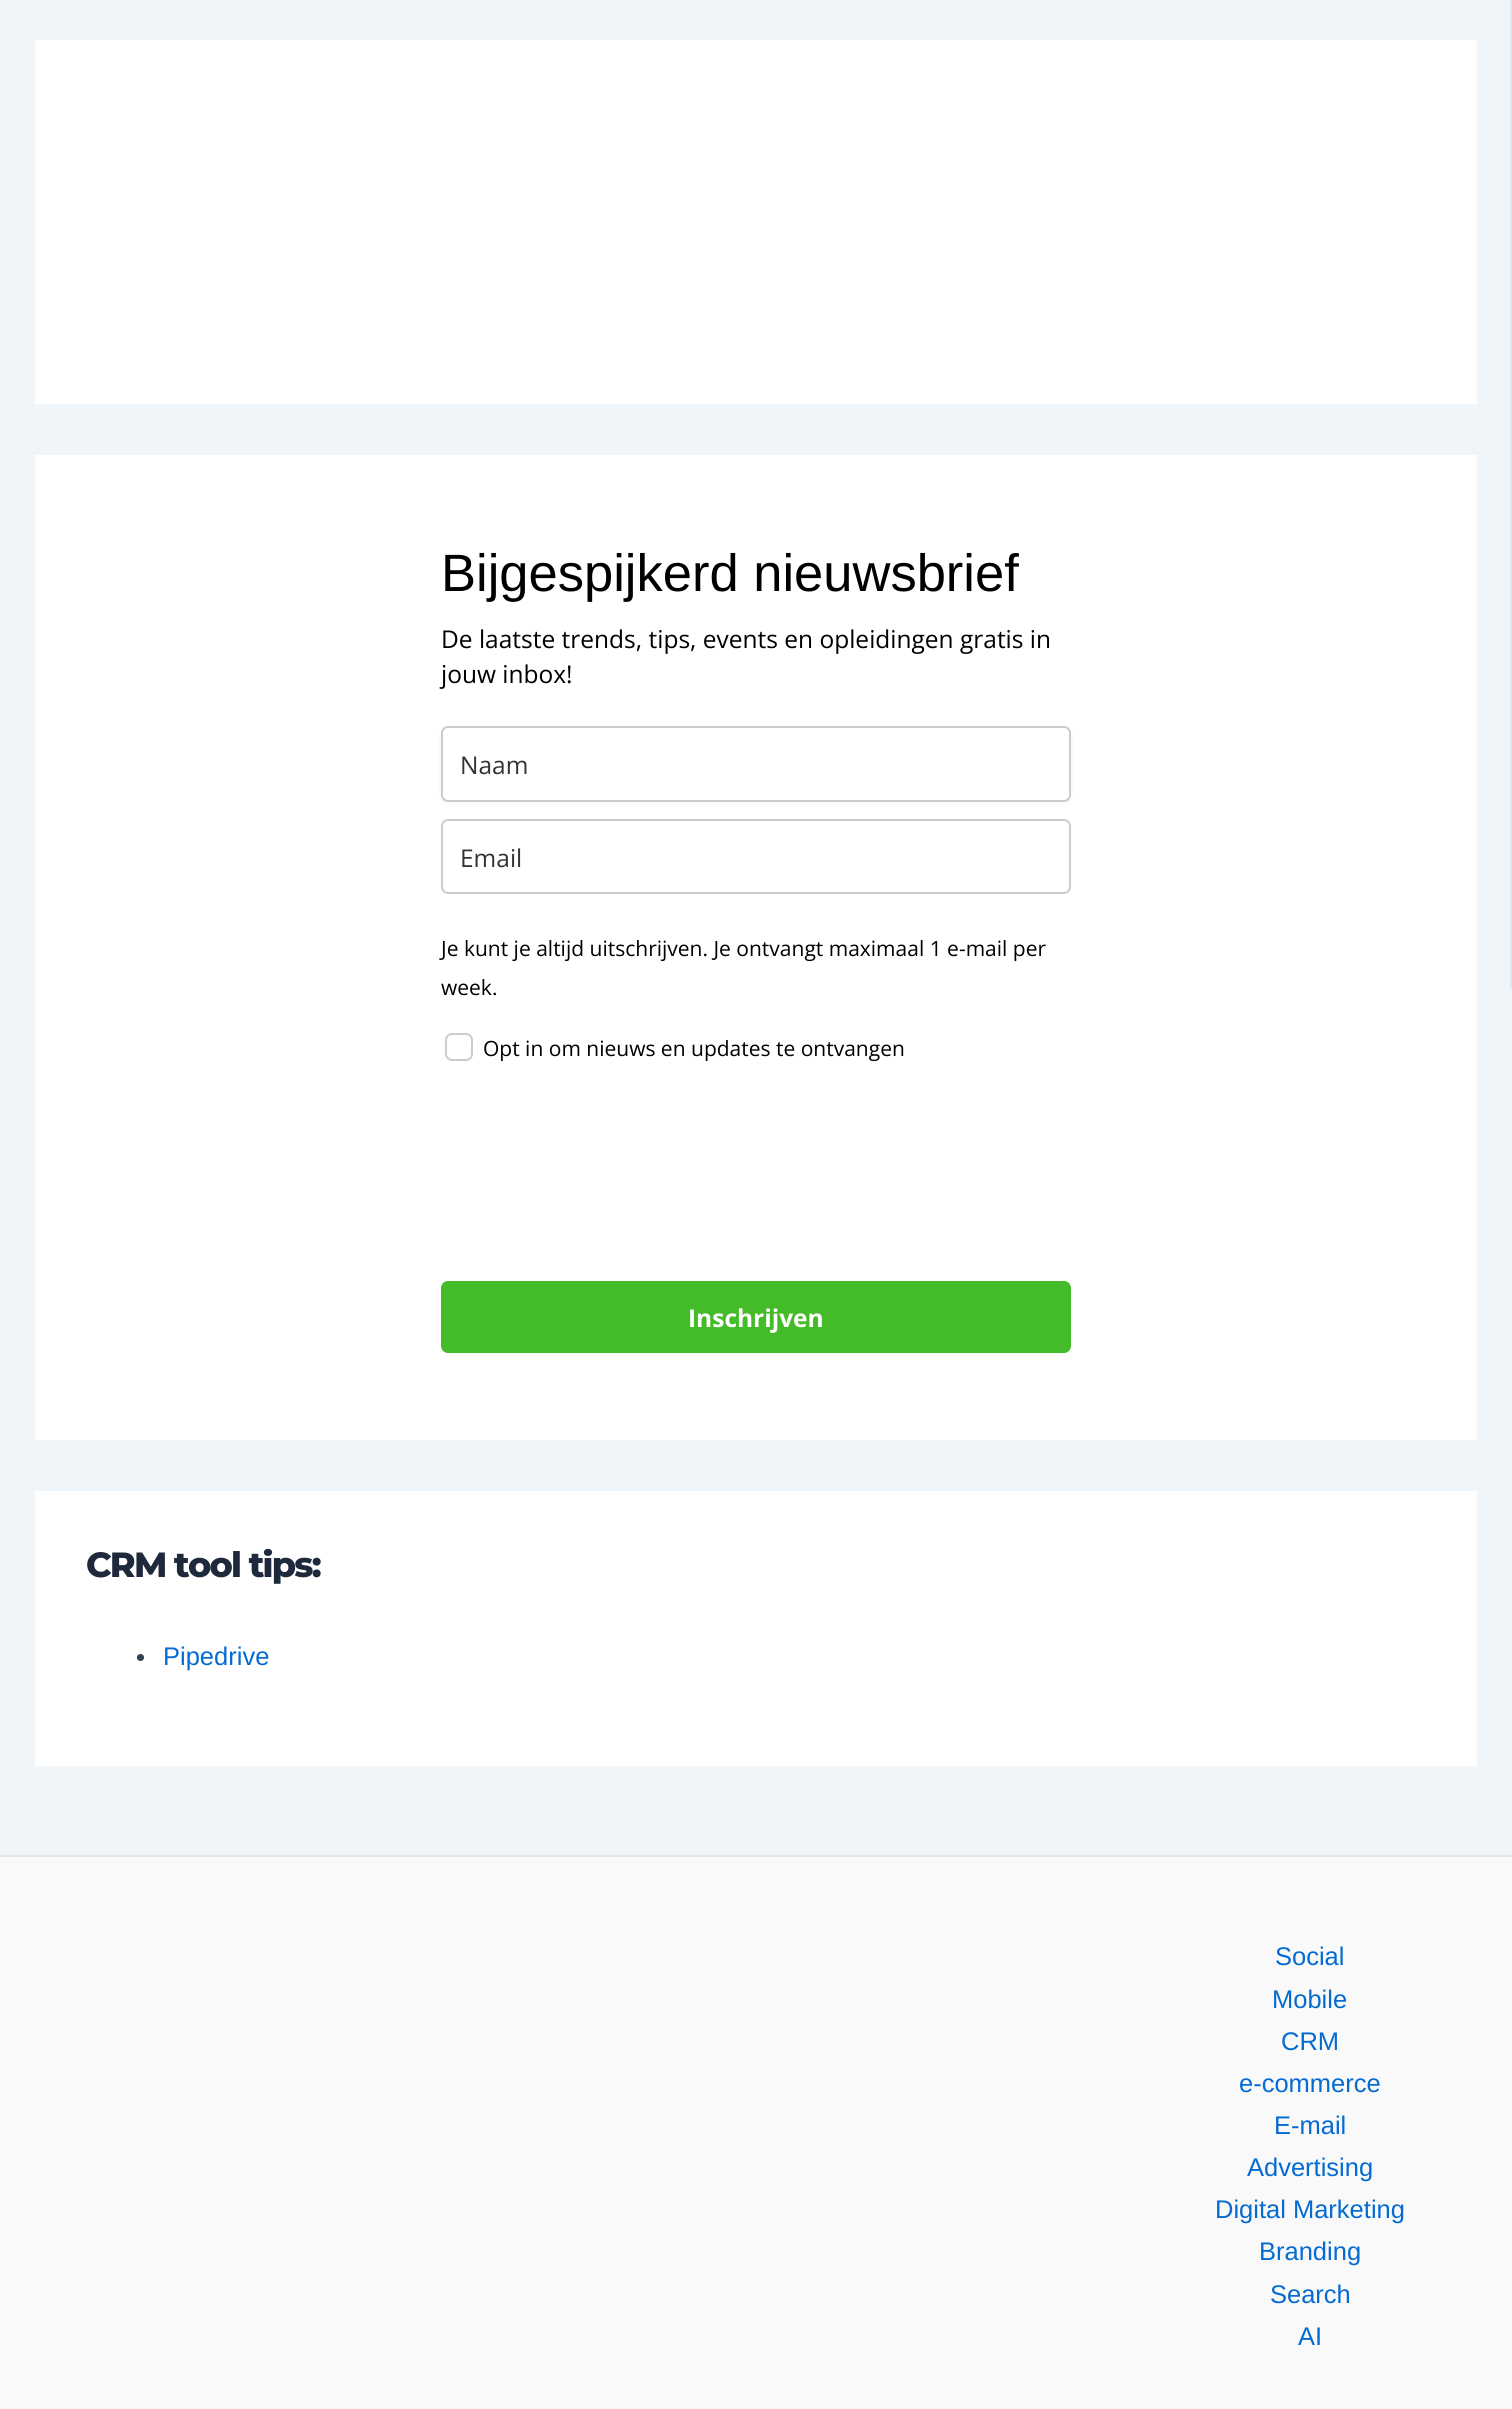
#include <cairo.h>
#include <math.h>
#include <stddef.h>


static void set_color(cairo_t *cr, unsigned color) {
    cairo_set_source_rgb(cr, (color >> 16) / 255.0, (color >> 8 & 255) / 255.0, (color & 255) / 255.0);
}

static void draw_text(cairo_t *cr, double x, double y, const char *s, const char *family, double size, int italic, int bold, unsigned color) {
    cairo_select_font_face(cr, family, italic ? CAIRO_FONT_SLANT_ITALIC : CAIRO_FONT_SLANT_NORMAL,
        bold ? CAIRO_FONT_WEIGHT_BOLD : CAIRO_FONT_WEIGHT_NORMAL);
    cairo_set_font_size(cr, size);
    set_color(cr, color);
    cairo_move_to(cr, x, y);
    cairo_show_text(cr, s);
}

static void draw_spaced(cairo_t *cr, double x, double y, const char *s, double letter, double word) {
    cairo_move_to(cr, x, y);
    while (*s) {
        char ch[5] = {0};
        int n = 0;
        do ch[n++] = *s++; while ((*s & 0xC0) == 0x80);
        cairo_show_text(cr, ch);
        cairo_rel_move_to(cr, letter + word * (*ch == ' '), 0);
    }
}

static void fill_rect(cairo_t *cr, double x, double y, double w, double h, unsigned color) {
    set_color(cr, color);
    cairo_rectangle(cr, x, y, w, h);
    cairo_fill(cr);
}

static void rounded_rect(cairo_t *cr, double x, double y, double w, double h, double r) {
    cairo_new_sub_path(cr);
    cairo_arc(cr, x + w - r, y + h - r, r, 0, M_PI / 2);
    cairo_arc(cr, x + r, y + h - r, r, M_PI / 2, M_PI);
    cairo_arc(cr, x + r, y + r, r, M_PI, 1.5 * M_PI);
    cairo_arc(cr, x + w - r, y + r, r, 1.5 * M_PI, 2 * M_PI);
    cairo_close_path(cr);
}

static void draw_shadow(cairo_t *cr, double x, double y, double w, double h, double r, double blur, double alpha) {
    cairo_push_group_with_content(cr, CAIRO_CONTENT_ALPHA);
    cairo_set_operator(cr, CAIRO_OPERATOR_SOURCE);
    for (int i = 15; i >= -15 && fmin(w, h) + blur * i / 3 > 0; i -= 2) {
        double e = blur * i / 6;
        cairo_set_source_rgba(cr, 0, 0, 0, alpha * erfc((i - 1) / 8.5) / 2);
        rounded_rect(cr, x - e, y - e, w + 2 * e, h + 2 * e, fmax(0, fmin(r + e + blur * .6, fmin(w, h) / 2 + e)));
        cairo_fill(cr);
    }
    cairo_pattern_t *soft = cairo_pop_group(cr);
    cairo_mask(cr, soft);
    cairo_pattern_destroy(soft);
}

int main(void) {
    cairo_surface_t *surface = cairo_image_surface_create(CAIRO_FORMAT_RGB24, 1512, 2409);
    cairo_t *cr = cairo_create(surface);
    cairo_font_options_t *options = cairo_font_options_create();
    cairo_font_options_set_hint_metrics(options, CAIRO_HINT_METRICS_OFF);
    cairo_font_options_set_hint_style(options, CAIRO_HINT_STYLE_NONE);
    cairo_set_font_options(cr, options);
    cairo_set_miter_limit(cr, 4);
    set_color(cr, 0xF0F5FA);
    cairo_paint(cr);
    fill_rect(cr, 35, 40, 1442, 364, 0xFFFFFF);
    fill_rect(cr, 35, 455, 1442, 985, 0xFFFFFF);
    draw_text(cr, 441, 591, "Bijgespijkerd nieuwsbrief", "Liberation Sans", 52.5, 0, 0, 0x000000);
    draw_text(cr, 441, 648, "De laatste trends, tips, events en opleidingen gratis in", "Open Sans", 24.5, 0, 0, 0x000000);
    draw_text(cr, 441, 683, "jouw inbox!", "Open Sans", 24.5, 0, 0, 0x000000);
    set_color(cr, 0x000000);
    draw_shadow(cr, 441, 728, 630, 75, 7, 2, 0.05);
    set_color(cr, 0xFFFFFF);
    rounded_rect(cr, 442, 727, 628, 74, 6);
    cairo_fill_preserve(cr);
    set_color(cr, 0xCCCCCC);
    cairo_stroke(cr);
    draw_text(cr, 460, 774, "Naam", "Open Sans", 24.5, 0, 0, 0x333333);
    rounded_rect(cr, 442, 820, 628, 73, 6);
    set_color(cr, 0xCCCCCC);
    cairo_stroke(cr);
    draw_text(cr, 460, 867, "Email", "Open Sans", 24.5, 0, 0, 0x333333);
    draw_text(cr, 441, 956, "Je kunt je altijd uitschrijven. Je ontvangt maximaal 1 e-mail per", "Open Sans", 21, 0, 0, 0x000000);
    draw_text(cr, 441, 995, "week.", "Open Sans", 21, 0, 0, 0x000000);
    rounded_rect(cr, 446, 1034, 26, 26, 6);
    set_color(cr, 0xCCCCCC);
    cairo_stroke(cr);
    draw_text(cr, 483, 1056, "Opt in om nieuws en updates te ontvangen", "Open Sans", 21, 0, 0, 0x000000);
    set_color(cr, 0x44BB29);
    rounded_rect(cr, 441, 1281, 630, 72, 7);
    cairo_fill(cr);
    draw_text(cr, 688, 1327, "Inschrijven", "Open Sans", 24.5, 0, 1, 0xFFFFFF);
    fill_rect(cr, 35, 1491, 1442, 275, 0xFFFFFF);
    cairo_select_font_face(cr, "Montserrat Thin", CAIRO_FONT_SLANT_NORMAL, CAIRO_FONT_WEIGHT_NORMAL);
    cairo_set_font_size(cr, 35);
    set_color(cr, 0x1E293B);
    draw_spaced(cr, 86, 1577, "CRM tool tips:", -1.75, 0);
    set_color(cr, 0x334155);
    cairo_new_path(cr);
    cairo_arc(cr, 140.5, 1657.5, 3.5, 0, 2 * M_PI);
    cairo_fill(cr);
    draw_text(cr, 163, 1665, "Pipedrive", "Liberation Sans", 25.5, 0, 0, 0x046BD2);
    fill_rect(cr, 1510, 0, 2, 989, 0xE1E8ED);
    fill_rect(cr, 0, 1857, 1512, 552, 0xF9F9F9);
    fill_rect(cr, 0, 1855, 1512, 2, 0xE6E6E6);
    draw_text(cr, 1275, 1965, "Social", "Liberation Sans", 25.5, 0, 0, 0x046BD2);
    draw_text(cr, 1272, 2008, "Mobile", "Liberation Sans", 25.5, 0, 0, 0x046BD2);
    draw_text(cr, 1281, 2050, "CRM", "Liberation Sans", 25.5, 0, 0, 0x046BD2);
    draw_text(cr, 1239, 2092, "e-commerce", "Liberation Sans", 25.5, 0, 0, 0x046BD2);
    draw_text(cr, 1274, 2134, "E-mail", "Liberation Sans", 25.5, 0, 0, 0x046BD2);
    draw_text(cr, 1247, 2176, "Advertising", "Liberation Sans", 25.5, 0, 0, 0x046BD2);
    draw_text(cr, 1215, 2218, "Digital Marketing", "Liberation Sans", 25.5, 0, 0, 0x046BD2);
    draw_text(cr, 1259, 2260, "Branding", "Liberation Sans", 25.5, 0, 0, 0x046BD2);
    draw_text(cr, 1270, 2303, "Search", "Liberation Sans", 25.5, 0, 0, 0x046BD2);
    draw_text(cr, 1298, 2345, "AI", "Liberation Sans", 25.5, 0, 0, 0x046BD2);
    cairo_surface_write_to_png(surface, "output.png");
    cairo_font_options_destroy(options);
    cairo_destroy(cr);
    cairo_surface_destroy(surface);
    return 0;
}
